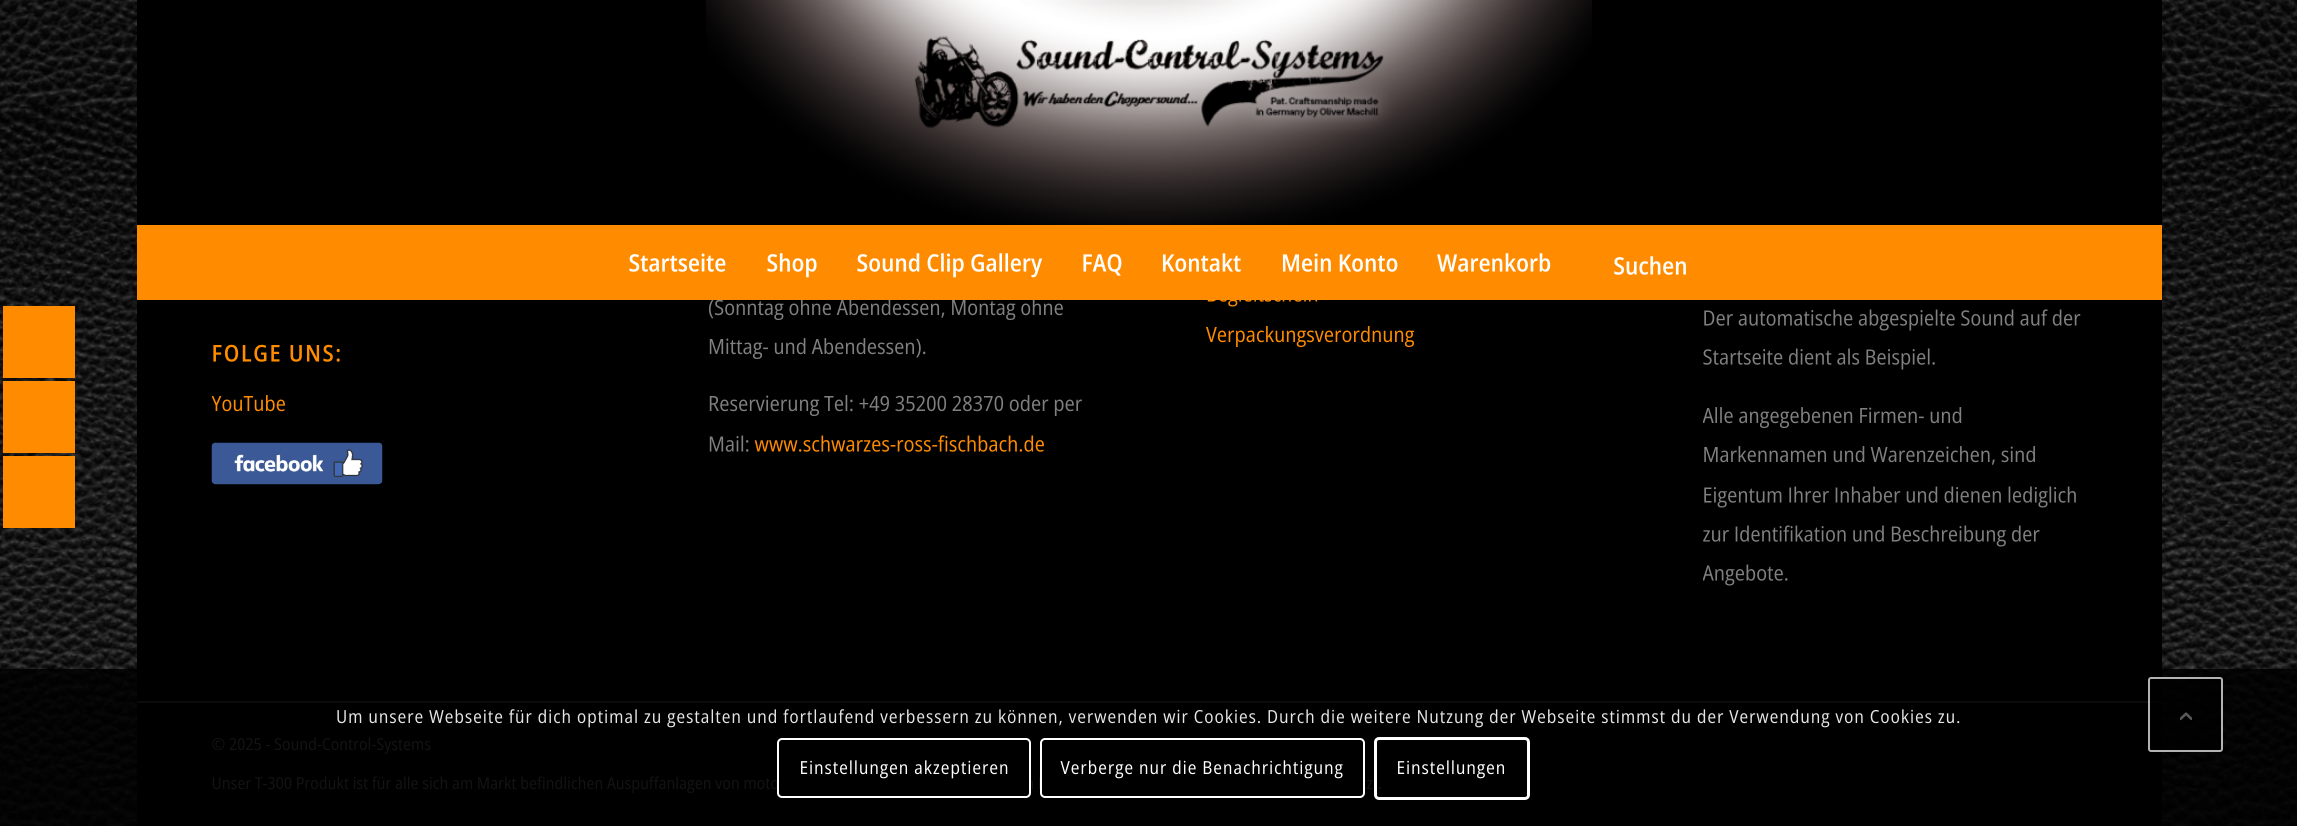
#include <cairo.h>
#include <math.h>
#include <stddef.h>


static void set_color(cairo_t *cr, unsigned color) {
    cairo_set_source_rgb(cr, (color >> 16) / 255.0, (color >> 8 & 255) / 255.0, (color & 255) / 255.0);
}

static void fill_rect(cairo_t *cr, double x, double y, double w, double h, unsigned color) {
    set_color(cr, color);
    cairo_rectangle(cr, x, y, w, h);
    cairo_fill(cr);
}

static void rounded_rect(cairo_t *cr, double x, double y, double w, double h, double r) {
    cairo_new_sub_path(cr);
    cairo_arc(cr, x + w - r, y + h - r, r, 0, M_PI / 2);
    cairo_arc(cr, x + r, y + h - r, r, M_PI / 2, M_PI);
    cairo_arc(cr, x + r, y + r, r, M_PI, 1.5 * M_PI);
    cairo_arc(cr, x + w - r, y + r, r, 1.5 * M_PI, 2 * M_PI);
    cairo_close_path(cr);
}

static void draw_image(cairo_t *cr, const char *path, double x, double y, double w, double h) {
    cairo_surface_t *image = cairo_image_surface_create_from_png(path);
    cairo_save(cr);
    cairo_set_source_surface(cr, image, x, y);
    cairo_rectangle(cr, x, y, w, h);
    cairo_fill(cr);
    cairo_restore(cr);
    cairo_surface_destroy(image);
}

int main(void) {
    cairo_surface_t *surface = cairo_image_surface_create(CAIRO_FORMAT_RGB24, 2297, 826);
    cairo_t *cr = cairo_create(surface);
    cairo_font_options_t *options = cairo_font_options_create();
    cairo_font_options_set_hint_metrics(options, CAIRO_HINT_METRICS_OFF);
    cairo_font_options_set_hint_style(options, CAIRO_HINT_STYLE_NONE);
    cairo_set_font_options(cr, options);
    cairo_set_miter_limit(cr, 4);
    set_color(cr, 0xFFFFFF);
    cairo_paint(cr);
    draw_image(cr, "assets/img1.png", 0, 0, 2297, 826);
    fill_rect(cr, 3, 306, 72, 72, 0xFF8C00);
    fill_rect(cr, 3, 381, 72, 72, 0xFF8C00);
    fill_rect(cr, 3, 456, 72, 72, 0xFF8C00);
    fill_rect(cr, 137, 0, 2025, 225, 0x000000);
    draw_image(cr, "assets/img2.png", 706, 0, 886, 225);
    fill_rect(cr, 137, 225, 2025, 75, 0xFF8C00);
    draw_image(cr, "assets/img3.png", 629, 253, 97, 19);
    draw_image(cr, "assets/img4.png", 767, 253, 50, 25);
    draw_image(cr, "assets/img5.png", 857, 253, 186, 25);
    draw_image(cr, "assets/img6.png", 1083, 254, 39, 22);
    draw_image(cr, "assets/img7.png", 1162, 253, 79, 19);
    draw_image(cr, "assets/img8.png", 1282, 253, 116, 19);
    draw_image(cr, "assets/img9.png", 1437, 253, 114, 19);
    draw_image(cr, "assets/img10.png", 1614, 256, 72, 19);
    fill_rect(cr, 137, 300, 2025, 526, 0x000000);
    draw_image(cr, "assets/img11.png", 213, 344, 127, 18);
    draw_image(cr, "assets/img12.png", 212, 395, 73, 17);
    draw_image(cr, "assets/img13.png", 211, 442, 172, 43);
    draw_image(cr, "assets/img14.png", 708, 300, 355, 20);
    draw_image(cr, "assets/img15.png", 709, 338, 217, 21);
    draw_image(cr, "assets/img16.png", 709, 395, 373, 21);
    draw_image(cr, "assets/img17.png", 709, 435, 40, 17);
    draw_image(cr, "assets/img18.png", 754, 435, 290, 17);
    draw_image(cr, "assets/img19.png", 1207, 300, 111, 7);
    draw_image(cr, "assets/img20.png", 1206, 326, 209, 21);
    draw_image(cr, "assets/img21.png", 1704, 309, 377, 22);
    draw_image(cr, "assets/img22.png", 1703, 348, 232, 22);
    draw_image(cr, "assets/img23.png", 1703, 407, 259, 21);
    draw_image(cr, "assets/img24.png", 1704, 446, 331, 19);
    draw_image(cr, "assets/img25.png", 1704, 486, 372, 22);
    draw_image(cr, "assets/img26.png", 1703, 525, 337, 22);
    draw_image(cr, "assets/img27.png", 1703, 564, 85, 22);
    fill_rect(cr, 137, 701, 2025, 2, 0x4D4D4D);
    draw_image(cr, "assets/img28.png", 212, 737, 219, 17);
    draw_image(cr, "assets/img29.png", 212, 776, 1169, 17);
    cairo_set_source_rgba(cr, 0, 0, 0, 0.85);
    cairo_rectangle(cr, 0, 669, 2297, 157);
    cairo_fill(cr);
    draw_image(cr, "assets/img30.png", 337, 709, 1623, 19);
    set_color(cr, 0x000000);
    rounded_rect(cr, 778, 739, 252, 58, 4);
    cairo_fill_preserve(cr);
    set_color(cr, 0xFFFFFF);
    cairo_stroke(cr);
    draw_image(cr, "assets/img31.png", 801, 760, 207, 19);
    set_color(cr, 0x000000);
    rounded_rect(cr, 1041, 739, 323, 58, 4);
    cairo_fill_preserve(cr);
    set_color(cr, 0xFFFFFF);
    cairo_stroke(cr);
    draw_image(cr, "assets/img32.png", 1060, 760, 283, 19);
    rounded_rect(cr, 1375.5, 738.5, 153, 60, 3.5);
    cairo_set_line_width(cr, 3);
    cairo_stroke(cr);
    draw_image(cr, "assets/img33.png", 1398, 760, 106, 19);
    cairo_set_source_rgba(cr, 0, 0, 0, 0.7);
    rounded_rect(cr, 2148, 677, 75, 75, 3);
    cairo_fill(cr);
    rounded_rect(cr, 2149, 678, 73, 73, 2);
    cairo_set_source_rgba(cr, 1, 1, 1, 0.7);
    cairo_set_line_width(cr, 2);
    cairo_stroke(cr);
    draw_image(cr, "assets/img34.png", 2180, 712, 12, 8);
    cairo_surface_write_to_png(surface, "output.png");
    cairo_font_options_destroy(options);
    cairo_destroy(cr);
    cairo_surface_destroy(surface);
    return 0;
}
